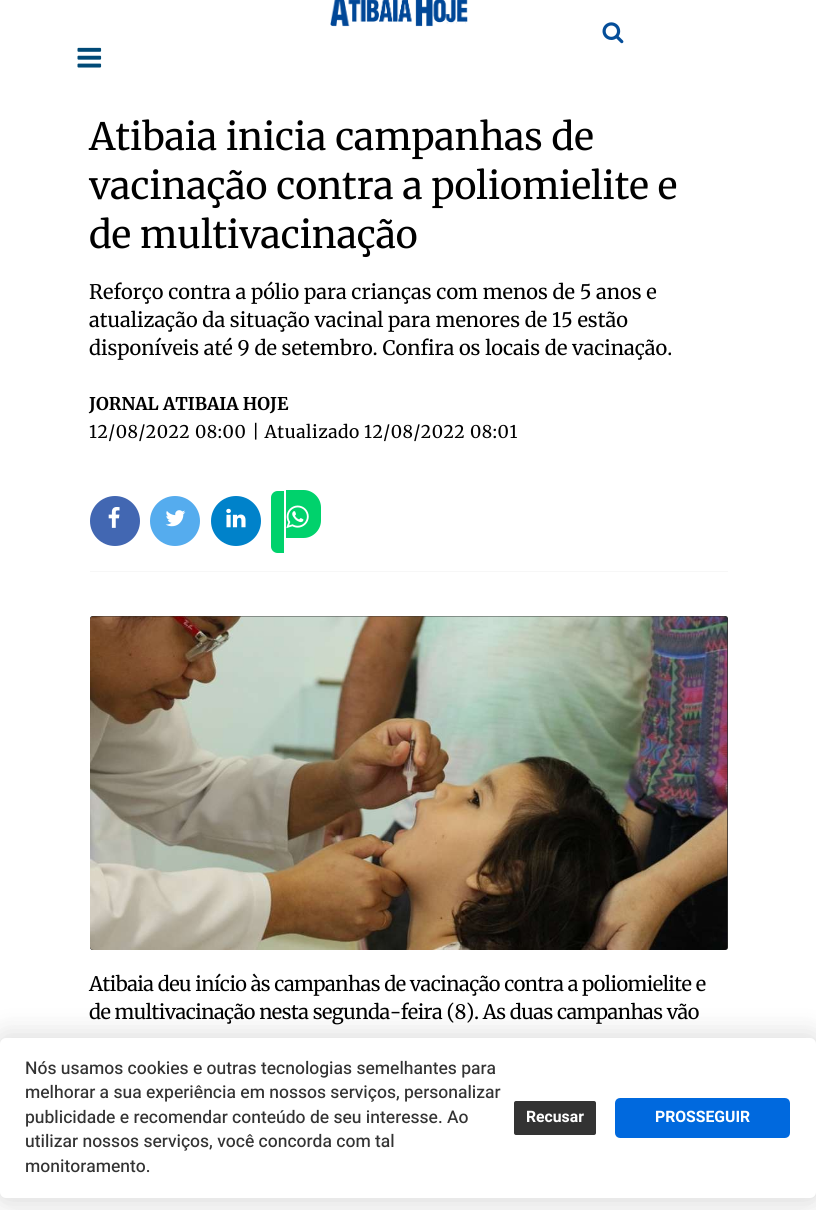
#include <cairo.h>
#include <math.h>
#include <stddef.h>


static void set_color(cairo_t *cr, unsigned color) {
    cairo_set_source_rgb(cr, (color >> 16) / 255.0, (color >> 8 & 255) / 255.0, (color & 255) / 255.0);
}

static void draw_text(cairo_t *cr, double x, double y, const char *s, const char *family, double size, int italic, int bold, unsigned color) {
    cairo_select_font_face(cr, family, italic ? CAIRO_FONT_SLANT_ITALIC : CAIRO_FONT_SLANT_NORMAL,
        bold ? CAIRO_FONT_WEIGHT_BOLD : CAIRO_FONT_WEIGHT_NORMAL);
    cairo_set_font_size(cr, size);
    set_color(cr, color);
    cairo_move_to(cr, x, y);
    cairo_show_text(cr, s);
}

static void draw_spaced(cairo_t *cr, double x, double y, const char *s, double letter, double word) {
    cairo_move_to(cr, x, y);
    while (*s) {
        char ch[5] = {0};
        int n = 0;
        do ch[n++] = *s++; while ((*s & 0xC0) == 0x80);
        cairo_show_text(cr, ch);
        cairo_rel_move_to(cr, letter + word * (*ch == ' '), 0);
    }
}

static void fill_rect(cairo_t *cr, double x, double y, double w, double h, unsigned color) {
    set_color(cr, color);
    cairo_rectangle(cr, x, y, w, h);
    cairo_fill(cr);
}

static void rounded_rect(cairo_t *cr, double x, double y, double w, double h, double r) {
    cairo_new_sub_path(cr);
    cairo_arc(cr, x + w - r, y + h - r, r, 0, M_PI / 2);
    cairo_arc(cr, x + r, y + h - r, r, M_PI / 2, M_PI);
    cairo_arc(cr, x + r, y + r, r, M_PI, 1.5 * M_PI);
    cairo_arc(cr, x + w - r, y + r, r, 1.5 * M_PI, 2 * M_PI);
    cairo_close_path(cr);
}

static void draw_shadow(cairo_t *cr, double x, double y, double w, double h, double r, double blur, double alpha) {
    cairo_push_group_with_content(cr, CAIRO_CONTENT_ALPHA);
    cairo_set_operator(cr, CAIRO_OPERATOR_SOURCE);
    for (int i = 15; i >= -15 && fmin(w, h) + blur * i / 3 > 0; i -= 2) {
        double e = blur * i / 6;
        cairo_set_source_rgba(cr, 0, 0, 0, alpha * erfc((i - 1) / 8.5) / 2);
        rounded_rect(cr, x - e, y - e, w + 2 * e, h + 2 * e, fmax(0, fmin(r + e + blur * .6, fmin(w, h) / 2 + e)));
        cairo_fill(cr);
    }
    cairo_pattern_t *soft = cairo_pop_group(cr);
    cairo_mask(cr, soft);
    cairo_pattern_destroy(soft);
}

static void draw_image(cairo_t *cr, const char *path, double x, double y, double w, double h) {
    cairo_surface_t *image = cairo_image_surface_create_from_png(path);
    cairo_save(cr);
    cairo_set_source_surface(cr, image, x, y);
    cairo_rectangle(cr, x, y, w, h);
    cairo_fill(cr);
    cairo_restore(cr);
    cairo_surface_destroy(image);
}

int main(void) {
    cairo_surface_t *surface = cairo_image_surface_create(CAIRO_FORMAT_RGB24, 816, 1210);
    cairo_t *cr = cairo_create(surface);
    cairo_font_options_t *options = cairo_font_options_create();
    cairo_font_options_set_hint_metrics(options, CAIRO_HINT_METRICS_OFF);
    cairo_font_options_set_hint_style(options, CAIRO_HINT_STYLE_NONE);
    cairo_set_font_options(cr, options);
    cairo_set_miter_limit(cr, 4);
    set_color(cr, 0xFFFFFF);
    cairo_paint(cr);
    draw_image(cr, "assets/img1.png", 330, 0, 138, 27);
    draw_image(cr, "assets/img2.png", 602, 22, 22, 22);
    draw_image(cr, "assets/img3.png", 77, 47, 25, 21);
    fill_rect(cr, 90, 571, 638, 1, 0xF7F7F7);
    draw_text(cr, 89, 150, "Atibaia inicia campanhas de", "Merriweather", 37.5, 0, 0, 0x000000);
    draw_text(cr, 89, 199, "vacinação contra a poliomielite e", "Merriweather", 37.5, 0, 0, 0x000000);
    draw_text(cr, 89, 248, "de multivacinação", "Merriweather", 37.5, 0, 0, 0x000000);
    draw_text(cr, 89, 299, "Reforço contra a pólio para crianças com menos de 5 anos e", "Merriweather", 20, 0, 0, 0x000000);
    draw_text(cr, 89, 327, "atualização da situação vacinal para menores de 15 estão", "Merriweather", 20, 0, 0, 0x000000);
    draw_text(cr, 89, 355, "disponíveis até 9 de setembro. Confira os locais de vacinação.", "Merriweather", 20, 0, 0, 0x000000);
    draw_text(cr, 89, 410, "JORNAL ATIBAIA HOJE", "Merriweather", 17.5, 0, 1, 0x000000);
    cairo_select_font_face(cr, "Merriweather", CAIRO_FONT_SLANT_NORMAL, CAIRO_FONT_WEIGHT_NORMAL);
    draw_spaced(cr, 89, 438, "12/08/2022 08:00", 0.5, 0);
    draw_spaced(cr, 252, 438, "| Atualizado", 0.5, 0);
    draw_spaced(cr, 364, 438, "12/08/2022 08:01", 0.5, 0);
    set_color(cr, 0x4267B2);
    cairo_new_path(cr);
    cairo_arc(cr, 115, 521, 25, 0, 2 * M_PI);
    cairo_fill(cr);
    draw_image(cr, "assets/img4.png", 108, 507, 12, 21);
    set_color(cr, 0x55ACEE);
    cairo_arc(cr, 175, 521, 25, 0, 2 * M_PI);
    cairo_fill(cr);
    draw_image(cr, "assets/img5.png", 165, 510, 21, 17);
    set_color(cr, 0x0082CA);
    cairo_arc(cr, 236, 521, 25, 0, 2 * M_PI);
    cairo_fill(cr);
    draw_image(cr, "assets/img6.png", 226, 508, 20, 20);
    set_color(cr, 0x00D26C);
    cairo_new_path(cr);
    cairo_move_to(cr, 277.5, 491);
    cairo_line_to(cr, 284, 491);
    cairo_line_to(cr, 284, 553);
    cairo_line_to(cr, 277.5, 553);
    cairo_curve_to(cr, 274, 553, 271, 550, 271, 546.5);
    cairo_line_to(cr, 271, 497.5);
    cairo_curve_to(cr, 271, 494, 274, 491, 277.5, 491);
    cairo_close_path(cr);
    cairo_fill(cr);
    cairo_new_path(cr);
    cairo_move_to(cr, 286, 490);
    cairo_line_to(cr, 303.5, 490);
    cairo_curve_to(cr, 313, 490, 321, 498, 321, 507.5);
    cairo_line_to(cr, 321, 520.5);
    cairo_curve_to(cr, 321, 530, 313, 538, 303.5, 538);
    cairo_line_to(cr, 286, 538);
    cairo_close_path(cr);
    cairo_fill(cr);
    draw_image(cr, "assets/img7.png", 286, 505, 23, 24);
    set_color(cr, 0x2D2D2D);
    rounded_rect(cr, 90, 616, 638, 334, 2.5);
    cairo_fill(cr);
    draw_image(cr, "assets/img8.png", 90, 616, 638, 334);
    cairo_set_font_size(cr, 19.9);
    set_color(cr, 0x000000);
    draw_spaced(cr, 89, 991, "Atibaia deu início às campanhas de vacinação contra a poliomielite e", -0.5, 0);
    draw_spaced(cr, 89, 1019, "de multivacinação nesta segunda-feira (8). As duas campanhas vão", -0.5, 0);
    set_color(cr, 0x000000);
    draw_shadow(cr, 0, 1046, 816, 160, 6, 25, 0.04);
    draw_shadow(cr, -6, 1031, 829, 173, 13, 12.5, 0.1);
    set_color(cr, 0xFFFFFF);
    rounded_rect(cr, 0, 1038, 816, 160, 6);
    cairo_fill(cr);
    draw_text(cr, 25, 1074, "Nós usamos cookies e outras tecnologias semelhantes para", "Heebo Medium", 17.5, 0, 0, 0x333333);
    draw_text(cr, 25, 1098, "melhorar a sua experiência em nossos serviços, personalizar", "Heebo Medium", 17.5, 0, 0, 0x333333);
    draw_text(cr, 25, 1123, "publicidade e recomendar conteúdo de seu interesse. Ao", "Heebo Medium", 17.5, 0, 0, 0x333333);
    draw_text(cr, 25, 1147, "utilizar nossos serviços, você concorda com tal", "Heebo Medium", 17.5, 0, 0, 0x333333);
    draw_text(cr, 25, 1172, "monitoramento.", "Heebo Medium", 17.5, 0, 0, 0x333333);
    rounded_rect(cr, 512.5, 1099.5, 85, 37, 3.5);
    cairo_fill_preserve(cr);
    set_color(cr, 0xFFFFFF);
    cairo_set_line_width(cr, 3);
    cairo_stroke(cr);
    draw_text(cr, 526, 1122, "Recusar", "Heebo", 15.75, 0, 1, 0xFFFFFF);
    set_color(cr, 0x0069DE);
    rounded_rect(cr, 616.5, 1099.5, 172, 37, 3.5);
    cairo_fill_preserve(cr);
    cairo_stroke(cr);
    draw_text(cr, 655, 1122, "PROSSEGUIR", "Heebo", 15.75, 0, 1, 0xFFFFFF);
    cairo_surface_write_to_png(surface, "output.png");
    cairo_font_options_destroy(options);
    cairo_destroy(cr);
    cairo_surface_destroy(surface);
    return 0;
}
